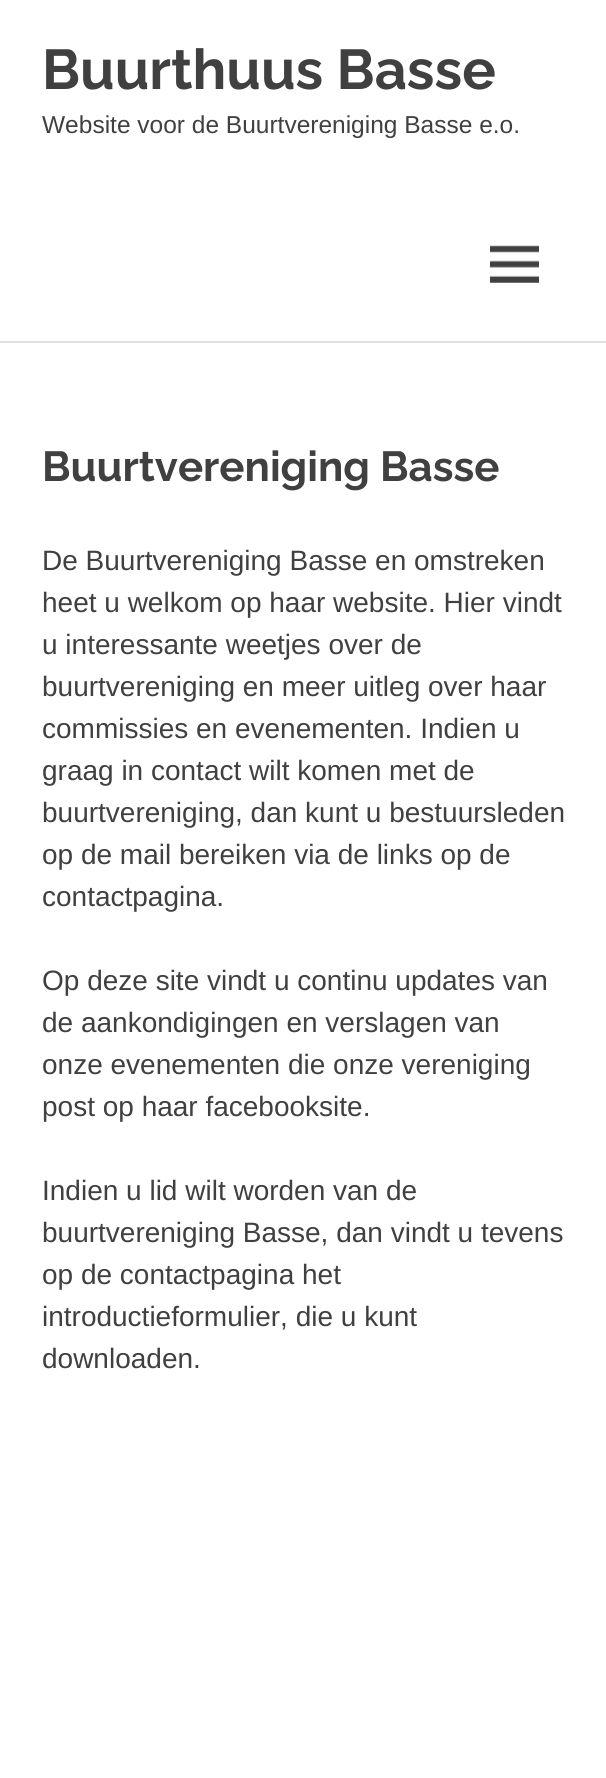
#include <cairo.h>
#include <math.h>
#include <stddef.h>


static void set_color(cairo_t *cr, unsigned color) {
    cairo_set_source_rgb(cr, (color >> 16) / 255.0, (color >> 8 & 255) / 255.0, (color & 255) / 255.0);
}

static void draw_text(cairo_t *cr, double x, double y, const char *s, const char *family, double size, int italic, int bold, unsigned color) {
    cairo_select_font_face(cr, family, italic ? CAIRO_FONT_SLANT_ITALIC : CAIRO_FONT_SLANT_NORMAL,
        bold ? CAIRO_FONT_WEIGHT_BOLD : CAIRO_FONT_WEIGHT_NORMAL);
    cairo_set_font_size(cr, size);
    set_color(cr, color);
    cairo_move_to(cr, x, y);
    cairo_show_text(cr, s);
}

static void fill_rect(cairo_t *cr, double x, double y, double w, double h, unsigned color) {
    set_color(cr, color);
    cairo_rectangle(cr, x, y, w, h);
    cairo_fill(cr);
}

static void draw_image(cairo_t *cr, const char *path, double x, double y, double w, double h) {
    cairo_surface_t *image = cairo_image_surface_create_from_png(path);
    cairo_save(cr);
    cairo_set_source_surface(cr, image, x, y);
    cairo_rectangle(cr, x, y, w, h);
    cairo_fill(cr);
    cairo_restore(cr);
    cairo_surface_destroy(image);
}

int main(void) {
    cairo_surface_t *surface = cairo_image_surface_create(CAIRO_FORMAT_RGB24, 606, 1778);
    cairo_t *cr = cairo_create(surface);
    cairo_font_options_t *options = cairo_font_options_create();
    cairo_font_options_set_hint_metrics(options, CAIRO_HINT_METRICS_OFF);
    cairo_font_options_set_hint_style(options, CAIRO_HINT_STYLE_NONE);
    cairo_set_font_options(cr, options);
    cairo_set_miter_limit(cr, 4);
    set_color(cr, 0xFFFFFF);
    cairo_paint(cr);
    fill_rect(cr, 0, 341, 606, 2, 0xE0E0E0);
    draw_text(cr, 42, 89, "Buurthuus Basse", "Raleway", 56, 0, 1, 0x404040);
    draw_text(cr, 42, 133, "Website voor de Buurtvereniging Basse e.o.", "Liberation Sans", 24.5, 0, 0, 0x404040);
    draw_image(cr, "assets/img1.png", 490, 245, 49, 38);
    draw_text(cr, 42, 481, "Buurtvereniging Basse", "Raleway", 42, 0, 1, 0x404040);
    draw_text(cr, 42, 570, "De Buurtvereniging Basse en omstreken", "Liberation Sans", 28, 0, 0, 0x404040);
    draw_text(cr, 42, 612, "heet u welkom op haar website. Hier vindt", "Liberation Sans", 28, 0, 0, 0x404040);
    draw_text(cr, 42, 654, "u interessante weetjes over de", "Liberation Sans", 28, 0, 0, 0x404040);
    draw_text(cr, 42, 696, "buurtvereniging en meer uitleg over haar", "Liberation Sans", 28, 0, 0, 0x404040);
    draw_text(cr, 42, 738, "commissies en evenementen. Indien u", "Liberation Sans", 28, 0, 0, 0x404040);
    draw_text(cr, 42, 780, "graag in contact wilt komen met de", "Liberation Sans", 28, 0, 0, 0x404040);
    draw_text(cr, 42, 822, "buurtvereniging, dan kunt u bestuursleden", "Liberation Sans", 28, 0, 0, 0x404040);
    draw_text(cr, 42, 864, "op de mail bereiken via de links op de", "Liberation Sans", 28, 0, 0, 0x404040);
    draw_text(cr, 42, 906, "contactpagina.", "Liberation Sans", 28, 0, 0, 0x404040);
    draw_text(cr, 42, 990, "Op deze site vindt u continu updates van", "Liberation Sans", 28, 0, 0, 0x404040);
    draw_text(cr, 42, 1032, "de aankondigingen en verslagen van", "Liberation Sans", 28, 0, 0, 0x404040);
    draw_text(cr, 42, 1074, "onze evenementen die onze vereniging", "Liberation Sans", 28, 0, 0, 0x404040);
    draw_text(cr, 42, 1116, "post op haar facebooksite.", "Liberation Sans", 28, 0, 0, 0x404040);
    draw_text(cr, 42, 1200, "Indien u lid wilt worden van de", "Liberation Sans", 28, 0, 0, 0x404040);
    draw_text(cr, 42, 1242, "buurtvereniging Basse, dan vindt u tevens", "Liberation Sans", 28, 0, 0, 0x404040);
    draw_text(cr, 42, 1284, "op de contactpagina het", "Liberation Sans", 28, 0, 0, 0x404040);
    draw_text(cr, 42, 1326, "introductieformulier, die u kunt", "Liberation Sans", 28, 0, 0, 0x404040);
    draw_text(cr, 42, 1368, "downloaden.", "Liberation Sans", 28, 0, 0, 0x404040);
    cairo_surface_write_to_png(surface, "output.png");
    cairo_font_options_destroy(options);
    cairo_destroy(cr);
    cairo_surface_destroy(surface);
    return 0;
}
